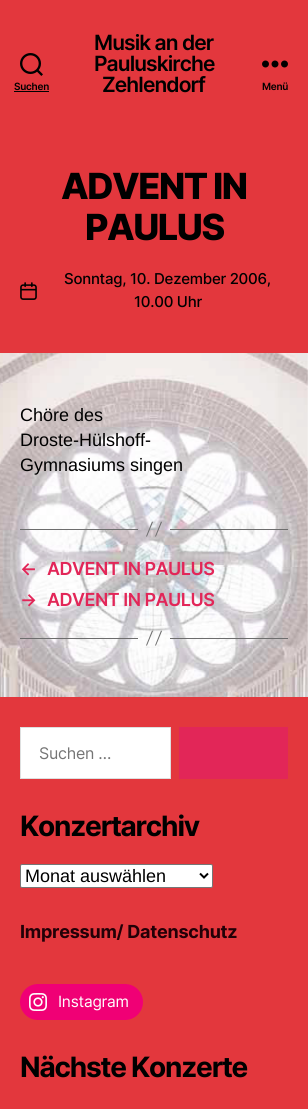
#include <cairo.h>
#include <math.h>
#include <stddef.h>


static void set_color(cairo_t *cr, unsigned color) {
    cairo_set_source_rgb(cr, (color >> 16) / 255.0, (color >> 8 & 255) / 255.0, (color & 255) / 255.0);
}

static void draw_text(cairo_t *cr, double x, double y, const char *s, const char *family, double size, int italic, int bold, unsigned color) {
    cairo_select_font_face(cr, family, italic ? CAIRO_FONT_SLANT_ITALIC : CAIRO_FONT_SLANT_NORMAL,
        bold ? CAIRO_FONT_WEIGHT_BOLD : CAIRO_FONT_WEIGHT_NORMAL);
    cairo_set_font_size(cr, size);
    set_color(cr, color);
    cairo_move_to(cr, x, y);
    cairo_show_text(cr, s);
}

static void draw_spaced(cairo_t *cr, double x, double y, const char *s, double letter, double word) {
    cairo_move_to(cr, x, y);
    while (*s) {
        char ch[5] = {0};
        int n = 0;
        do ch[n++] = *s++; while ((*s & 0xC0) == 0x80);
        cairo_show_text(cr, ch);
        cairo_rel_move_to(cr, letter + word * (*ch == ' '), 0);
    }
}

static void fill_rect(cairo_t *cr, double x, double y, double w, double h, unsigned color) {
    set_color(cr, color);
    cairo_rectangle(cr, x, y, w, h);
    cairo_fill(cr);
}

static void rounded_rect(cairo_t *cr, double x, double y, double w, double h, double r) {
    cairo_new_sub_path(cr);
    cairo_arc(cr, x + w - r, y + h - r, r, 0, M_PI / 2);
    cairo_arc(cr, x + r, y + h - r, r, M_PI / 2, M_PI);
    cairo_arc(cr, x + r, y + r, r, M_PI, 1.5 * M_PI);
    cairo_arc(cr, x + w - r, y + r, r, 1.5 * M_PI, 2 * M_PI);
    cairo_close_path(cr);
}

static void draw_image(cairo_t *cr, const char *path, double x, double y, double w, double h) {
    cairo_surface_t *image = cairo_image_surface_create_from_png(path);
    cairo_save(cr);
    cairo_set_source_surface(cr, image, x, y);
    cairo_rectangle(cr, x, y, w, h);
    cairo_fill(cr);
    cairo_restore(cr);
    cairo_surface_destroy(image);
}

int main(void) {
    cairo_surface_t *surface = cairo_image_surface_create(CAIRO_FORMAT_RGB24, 308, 1109);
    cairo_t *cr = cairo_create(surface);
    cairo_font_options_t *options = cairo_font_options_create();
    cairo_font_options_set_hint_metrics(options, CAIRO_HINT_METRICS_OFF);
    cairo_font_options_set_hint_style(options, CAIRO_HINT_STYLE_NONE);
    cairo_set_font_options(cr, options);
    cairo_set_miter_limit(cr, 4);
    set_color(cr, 0xFFFFFF);
    cairo_paint(cr);
    draw_image(cr, "assets/img1.png", 0, 353, 308, 344);
    fill_rect(cr, 0, 0, 308, 353, 0xE3373D);
    draw_image(cr, "assets/img2.png", 20, 53, 23, 23);
    cairo_select_font_face(cr, "Inter SemiBold", CAIRO_FONT_SLANT_NORMAL, CAIRO_FONT_WEIGHT_NORMAL);
    cairo_set_font_size(cr, 10);
    set_color(cr, 0x000000);
    draw_spaced(cr, 14, 90, "Suchen", -0.25, 0);
    fill_rect(cr, 14, 91, 35, 1, 0x000000);
    cairo_set_font_size(cr, 21);
    draw_spaced(cr, 94, 50, "Musik an der", -0.9, 0);
    draw_spaced(cr, 94, 71, "Pauluskirche", -0.9, 0);
    draw_spaced(cr, 102, 92, "Zehlendorf", -0.9, 0);
    draw_image(cr, "assets/img3.png", 262, 60, 26, 8);
    cairo_set_font_size(cr, 10);
    draw_spaced(cr, 262, 90, "Menü", -0.25, 0);
    cairo_select_font_face(cr, "Inter ExtraBold", CAIRO_FONT_SLANT_NORMAL, CAIRO_FONT_WEIGHT_NORMAL);
    cairo_set_font_size(cr, 36);
    draw_spaced(cr, 61, 199, "ADVENT IN", -1.5, 0);
    draw_spaced(cr, 85, 240, "PAULUS", -1.5, 0);
    draw_image(cr, "assets/img4.png", 20, 282, 17, 18);
    cairo_select_font_face(cr, "Inter Medium", CAIRO_FONT_SLANT_NORMAL, CAIRO_FONT_WEIGHT_NORMAL);
    cairo_set_font_size(cr, 15);
    draw_spaced(cr, 64, 284, "Sonntag, 10. Dezember 2006,", -0.25, 0);
    draw_spaced(cr, 134, 307, "10.00 Uhr", -0.25, 0);
    draw_text(cr, 20, 421, "Chöre des", "Liberation Sans", 18, 0, 0, 0x000000);
    draw_text(cr, 20, 446, "Droste-Hülshoff-", "Liberation Sans", 18, 0, 0, 0x000000);
    draw_text(cr, 20, 471, "Gymnasiums singen", "Liberation Sans", 18, 0, 0, 0x000000);
    fill_rect(cr, 170, 529, 118, 1, 0x6D6D6D);
    fill_rect(cr, 20, 529, 118, 1, 0x6D6D6D);
    cairo_new_path(cr);
    cairo_move_to(cr, 152, 521.5);
    cairo_line_to(cr, 153, 522);
    cairo_line_to(cr, 147, 536.5);
    cairo_line_to(cr, 146, 536.5);
    cairo_close_path(cr);
    cairo_move_to(cr, 161, 521.5);
    cairo_line_to(cr, 162, 522);
    cairo_line_to(cr, 156, 536.5);
    cairo_line_to(cr, 155, 536.5);
    cairo_close_path(cr);
    cairo_fill(cr);
    cairo_select_font_face(cr, "Inter SemiBold", CAIRO_FONT_SLANT_NORMAL, CAIRO_FONT_WEIGHT_NORMAL);
    set_color(cr, 0xE22658);
    draw_spaced(cr, 20, 575, "←", -0.5, 0);
    draw_spaced(cr, 47, 575, "ADVENT IN PAULUS", -0.5, 0);
    draw_spaced(cr, 20, 606, "→", -0.5, 0);
    draw_spaced(cr, 47, 606, "ADVENT IN PAULUS", -0.5, 0);
    fill_rect(cr, 170, 638, 118, 1, 0x6D6D6D);
    fill_rect(cr, 20, 638, 118, 1, 0x6D6D6D);
    cairo_new_path(cr);
    cairo_move_to(cr, 152, 630.5);
    cairo_line_to(cr, 153, 631);
    cairo_line_to(cr, 147, 645.5);
    cairo_line_to(cr, 146, 645.5);
    cairo_close_path(cr);
    cairo_move_to(cr, 161, 630.5);
    cairo_line_to(cr, 162, 631);
    cairo_line_to(cr, 156, 645.5);
    cairo_line_to(cr, 155, 645.5);
    cairo_close_path(cr);
    cairo_fill(cr);
    fill_rect(cr, 0, 697, 308, 412, 0xE3373D);
    set_color(cr, 0xFFFFFF);
    cairo_rectangle(cr, 20.5, 727.5, 150, 51);
    cairo_fill_preserve(cr);
    set_color(cr, 0xDEDFDF);
    cairo_set_line_width(cr, 1);
    cairo_stroke(cr);
    cairo_select_font_face(cr, "Inter", CAIRO_FONT_SLANT_NORMAL, CAIRO_FONT_WEIGHT_NORMAL);
    cairo_set_font_size(cr, 16);
    set_color(cr, 0x757575);
    draw_spaced(cr, 39, 759, "Suchen …", -0.25, 0);
    fill_rect(cr, 179, 727, 109, 52, 0xE22658);
    cairo_select_font_face(cr, "Inter", CAIRO_FONT_SLANT_NORMAL, CAIRO_FONT_WEIGHT_BOLD);
    cairo_set_font_size(cr, 28);
    set_color(cr, 0x000000);
    draw_spaced(cr, 20, 836, "Konzertarchiv", -1.2, 0);
    set_color(cr, 0xFFFFFF);
    rounded_rect(cr, 20.5, 864.5, 192, 23, 1.5);
    cairo_fill_preserve(cr);
    set_color(cr, 0x767676);
    cairo_stroke(cr);
    cairo_new_path(cr);
    cairo_move_to(cr, 200, 873.5);
    cairo_line_to(cr, 204, 877.5);
    cairo_line_to(cr, 208, 873.5);
    set_color(cr, 0x000000);
    cairo_set_line_width(cr, 2);
    cairo_stroke(cr);
    draw_text(cr, 25, 882, "Monat auswählen", "Liberation Sans", 18, 0, 0, 0x000000);
    cairo_select_font_face(cr, "Inter", CAIRO_FONT_SLANT_NORMAL, CAIRO_FONT_WEIGHT_BOLD);
    set_color(cr, 0x230007);
    draw_spaced(cr, 20, 938, "Impressum/ Datenschutz", -0.25, 0);
    set_color(cr, 0xF00075);
    rounded_rect(cr, 20, 984, 123, 36, 18);
    cairo_fill(cr);
    draw_image(cr, "assets/img5.png", 29, 993, 18, 18);
    cairo_select_font_face(cr, "Inter", CAIRO_FONT_SLANT_NORMAL, CAIRO_FONT_WEIGHT_NORMAL);
    cairo_set_font_size(cr, 15.5);
    set_color(cr, 0xFFFFFF);
    draw_spaced(cr, 58, 1007, "Instagram", -0.25, 0);
    cairo_select_font_face(cr, "Inter", CAIRO_FONT_SLANT_NORMAL, CAIRO_FONT_WEIGHT_BOLD);
    cairo_set_font_size(cr, 28);
    set_color(cr, 0x000000);
    draw_spaced(cr, 20, 1077, "Nächste Konzerte", -1.2, 0);
    cairo_surface_write_to_png(surface, "output.png");
    cairo_font_options_destroy(options);
    cairo_destroy(cr);
    cairo_surface_destroy(surface);
    return 0;
}
